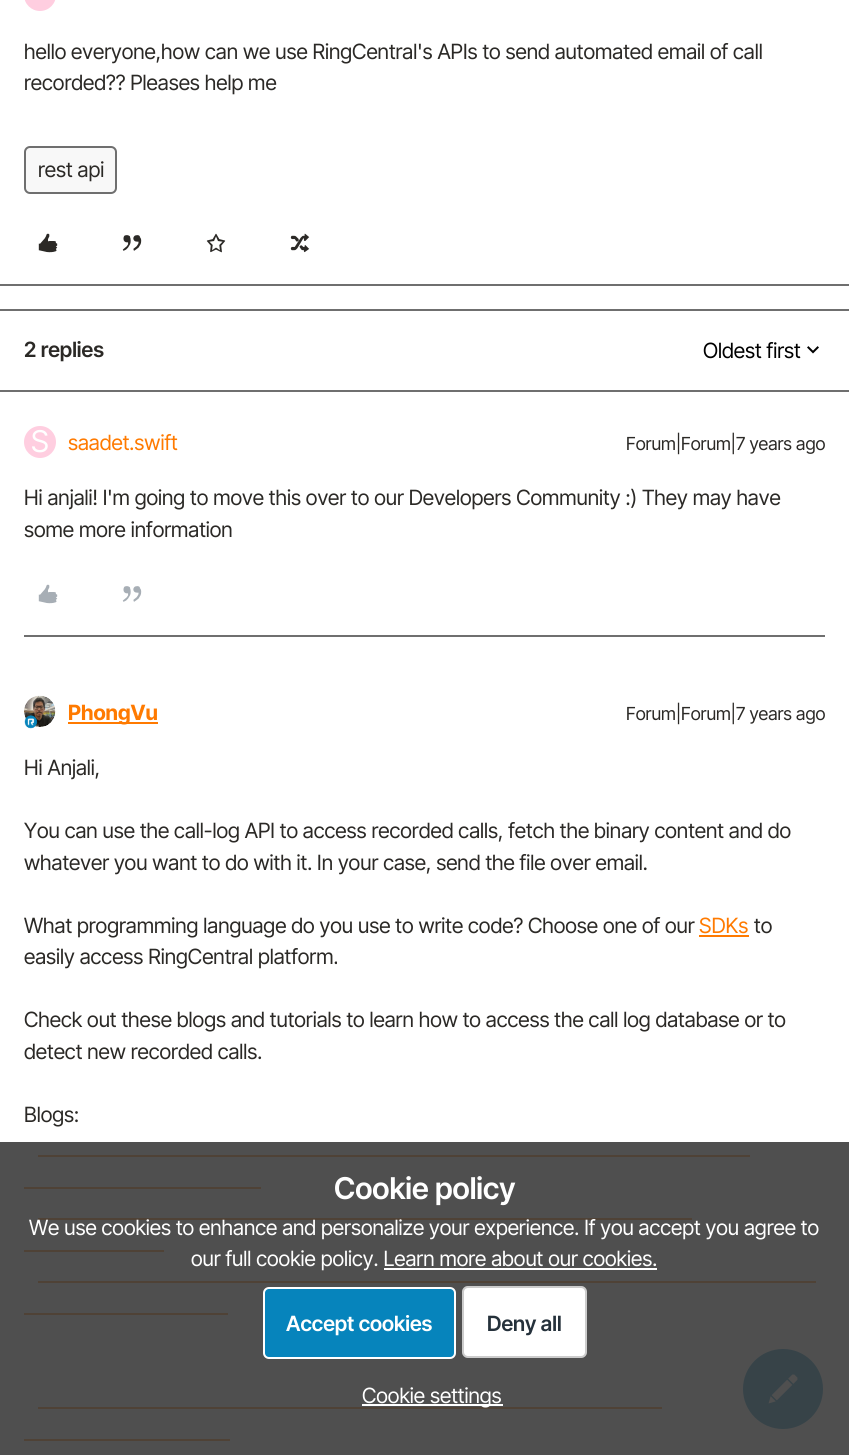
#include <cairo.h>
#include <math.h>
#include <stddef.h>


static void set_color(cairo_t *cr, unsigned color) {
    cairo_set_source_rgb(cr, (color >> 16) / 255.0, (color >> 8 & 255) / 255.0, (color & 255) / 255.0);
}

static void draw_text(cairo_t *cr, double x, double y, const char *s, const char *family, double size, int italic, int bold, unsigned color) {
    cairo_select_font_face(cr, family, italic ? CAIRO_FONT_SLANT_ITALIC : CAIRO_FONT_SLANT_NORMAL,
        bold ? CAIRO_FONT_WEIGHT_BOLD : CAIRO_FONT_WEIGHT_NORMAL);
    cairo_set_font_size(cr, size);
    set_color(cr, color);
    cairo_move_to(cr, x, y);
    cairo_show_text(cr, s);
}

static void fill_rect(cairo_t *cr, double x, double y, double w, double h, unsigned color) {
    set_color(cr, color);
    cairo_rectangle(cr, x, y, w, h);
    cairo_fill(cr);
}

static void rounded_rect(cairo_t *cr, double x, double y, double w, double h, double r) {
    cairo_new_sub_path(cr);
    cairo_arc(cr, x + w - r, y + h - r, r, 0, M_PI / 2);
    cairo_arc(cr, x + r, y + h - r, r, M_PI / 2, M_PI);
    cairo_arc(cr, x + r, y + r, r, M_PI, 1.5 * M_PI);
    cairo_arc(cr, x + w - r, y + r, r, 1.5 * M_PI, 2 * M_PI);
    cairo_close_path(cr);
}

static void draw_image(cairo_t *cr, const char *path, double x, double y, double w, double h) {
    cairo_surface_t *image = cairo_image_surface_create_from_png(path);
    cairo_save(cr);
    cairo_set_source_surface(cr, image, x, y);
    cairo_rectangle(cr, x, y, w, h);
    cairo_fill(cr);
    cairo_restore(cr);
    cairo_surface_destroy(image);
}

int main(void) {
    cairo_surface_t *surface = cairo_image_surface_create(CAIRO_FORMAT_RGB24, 849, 1455);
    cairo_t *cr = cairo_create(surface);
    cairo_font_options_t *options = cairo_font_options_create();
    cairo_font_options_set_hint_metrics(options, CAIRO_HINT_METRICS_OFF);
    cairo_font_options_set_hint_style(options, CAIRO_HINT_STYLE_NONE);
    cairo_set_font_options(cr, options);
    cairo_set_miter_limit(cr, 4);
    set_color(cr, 0xFFFFFF);
    cairo_paint(cr);
    fill_rect(cr, 0, 284, 849, 2, 0x6F6F6F);
    set_color(cr, 0xFFCEE0);
    rounded_rect(cr, 24, -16, 32, 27, 16);
    cairo_fill(cr);
    draw_text(cr, 24, 59, "hello everyone,how can we use RingCentral's APIs to send automated email of call", "Inter Tight", 21, 0, 0, 0x2B2926);
    draw_text(cr, 24, 90, "recorded?\077 Pleases help me", "Inter Tight", 21, 0, 0, 0x2B2926);
    set_color(cr, 0xF8F8F8);
    rounded_rect(cr, 25, 147, 91, 46, 5);
    cairo_fill_preserve(cr);
    set_color(cr, 0x6F6F6F);
    cairo_stroke(cr);
    draw_text(cr, 38, 177, "rest api", "Inter Tight", 21, 0, 0, 0x2B2926);
    draw_image(cr, "assets/img1.png", 38, 233, 20, 20);
    draw_image(cr, "assets/img2.png", 122, 235, 20, 16);
    draw_image(cr, "assets/img3.png", 206, 233, 20, 20);
    draw_image(cr, "assets/img4.png", 290, 233, 20, 20);
    fill_rect(cr, 0, 309, 849, 2, 0x6F6F6F);
    fill_rect(cr, 0, 390, 849, 2, 0x6F6F6F);
    draw_text(cr, 24, 357, "2 replies", "Inter Tight SemiBold", 21, 0, 0, 0x2B2926);
    draw_text(cr, 703, 358, "Oldest first", "Inter Tight", 21, 0, 0, 0x000000);
    draw_image(cr, "assets/img5.png", 807, 346, 12, 8);
    set_color(cr, 0xFFCEE0);
    cairo_arc(cr, 40, 442, 16, 0, 2 * M_PI);
    cairo_fill(cr);
    draw_text(cr, 31, 452, "S", "Inter Tight", 30, 0, 0, 0xFFFFFF);
    draw_text(cr, 68, 450, "saadet.swift", "Inter Tight", 21, 0, 0, 0xFF7A00);
    draw_text(cr, 626, 450, "Forum|Forum|7 years ago", "Inter Tight", 18, 0, 0, 0x2B2926);
    draw_text(cr, 24, 505, "Hi anjali! I'm going to move this over to our Developers Community :) They may have", "Inter Tight", 21, 0, 0, 0x2B2926);
    draw_text(cr, 24, 537, "some more information", "Inter Tight", 21, 0, 0, 0x2B2926);
    draw_image(cr, "assets/img6.png", 38, 584, 20, 20);
    draw_image(cr, "assets/img7.png", 122, 586, 20, 16);
    fill_rect(cr, 24, 635, 801, 2, 0x6F6F6F);
    draw_image(cr, "assets/img8.png", 24, 695, 32, 32);
    draw_image(cr, "assets/img9.png", 24, 715, 14, 14);
    fill_rect(cr, 68, 722, 90, 2, 0xFF7A00);
    draw_text(cr, 68, 720, "PhongVu", "Inter Tight", 21, 0, 1, 0xFF7A00);
    draw_text(cr, 626, 720, "Forum|Forum|7 years ago", "Inter Tight", 18, 0, 0, 0x2B2926);
    draw_text(cr, 24, 775, "Hi Anjali,", "Inter Tight", 21, 0, 0, 0x2B2926);
    draw_text(cr, 24, 838, "You can use the call-log API to access recorded calls, fetch the binary content and do", "Inter Tight", 21, 0, 0, 0x2B2926);
    draw_text(cr, 24, 870, "whatever you want to do with it. In your case, send the file over email.", "Inter Tight", 21, 0, 0, 0x2B2926);
    draw_text(cr, 24, 933, "What programming language do you use to write code? Choose one of our", "Inter Tight", 21, 0, 0, 0x2B2926);
    draw_text(cr, 699, 933, "SDKs", "Inter Tight", 21, 0, 0, 0xFF7A00);
    fill_rect(cr, 699, 935, 50, 2, 0xFF7A00);
    draw_text(cr, 754, 933, "to", "Inter Tight", 21, 0, 0, 0x2B2926);
    draw_text(cr, 24, 964, "easily access RingCentral platform.", "Inter Tight", 21, 0, 0, 0x2B2926);
    draw_text(cr, 24, 1027, "Check out these blogs and tutorials to learn how to access the call log database or to", "Inter Tight", 21, 0, 0, 0x2B2926);
    draw_text(cr, 24, 1059, "detect new recorded calls.", "Inter Tight", 21, 0, 0, 0x2B2926);
    draw_text(cr, 24, 1122, "Blogs:", "Inter Tight", 21, 0, 0, 0x2B2926);
    fill_rect(cr, 38, 1155, 712, 2, 0xFF7A00);
    fill_rect(cr, 24, 1187, 237, 2, 0xFF7A00);
    fill_rect(cr, 38, 1218, 654, 2, 0xFF7A00);
    fill_rect(cr, 24, 1250, 140, 2, 0xFF7A00);
    fill_rect(cr, 38, 1281, 778, 2, 0xFF7A00);
    fill_rect(cr, 24, 1313, 204, 2, 0xFF7A00);
    fill_rect(cr, 38, 1407, 624, 2, 0xFF7A00);
    fill_rect(cr, 24, 1439, 206, 2, 0xFF7A00);
    set_color(cr, 0x0684BC);
    cairo_new_path(cr);
    cairo_arc(cr, 783, 1389, 41, 0, 2 * M_PI);
    cairo_fill_preserve(cr);
    set_color(cr, 0xFFFFFF);
    cairo_stroke(cr);
    draw_image(cr, "assets/img10.png", 768, 1374, 30, 30);
    cairo_set_source_rgba(cr, 0.235, 0.235, 0.235, 0.9);
    cairo_rectangle(cr, 0, 1142, 849, 313);
    cairo_fill(cr);
    draw_text(cr, 334, 1199, "Cookie policy", "Inter Tight SemiBold", 30, 0, 0, 0xFFFFFF);
    draw_text(cr, 29, 1235, "We use cookies to enhance and personalize your experience. If you accept you agree to", "Inter Tight", 21, 0, 0, 0xFFFFFF);
    draw_text(cr, 191, 1266, "our full cookie policy. Learn more about our cookies.", "Inter Tight", 21, 0, 0, 0xFFFFFF);
    fill_rect(cr, 384, 1268, 273, 2, 0xFFFFFF);
    set_color(cr, 0x0684BC);
    rounded_rect(cr, 264, 1288, 191, 70, 5);
    cairo_fill_preserve(cr);
    set_color(cr, 0xFFFFFF);
    cairo_stroke(cr);
    draw_text(cr, 286, 1331, "Accept cookies", "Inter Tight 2 SemiBold", 21, 0, 0, 0xFFFFFF);
    rounded_rect(cr, 462, 1286, 125, 72, 6);
    cairo_fill(cr);
    rounded_rect(cr, 463, 1287, 123, 70, 5);
    cairo_set_source_rgba(cr, 0, 0, 0, 0.2);
    cairo_stroke(cr);
    draw_text(cr, 487, 1331, "Deny all", "Inter Tight 2 SemiBold", 21, 0, 0, 0x25313B);
    fill_rect(cr, 362, 1404, 141, 2, 0xFFFFFF);
    draw_text(cr, 362, 1403, "Cookie settings", "Inter Tight", 21, 0, 0, 0xFFFFFF);
    cairo_surface_write_to_png(surface, "output.png");
    cairo_font_options_destroy(options);
    cairo_destroy(cr);
    cairo_surface_destroy(surface);
    return 0;
}
